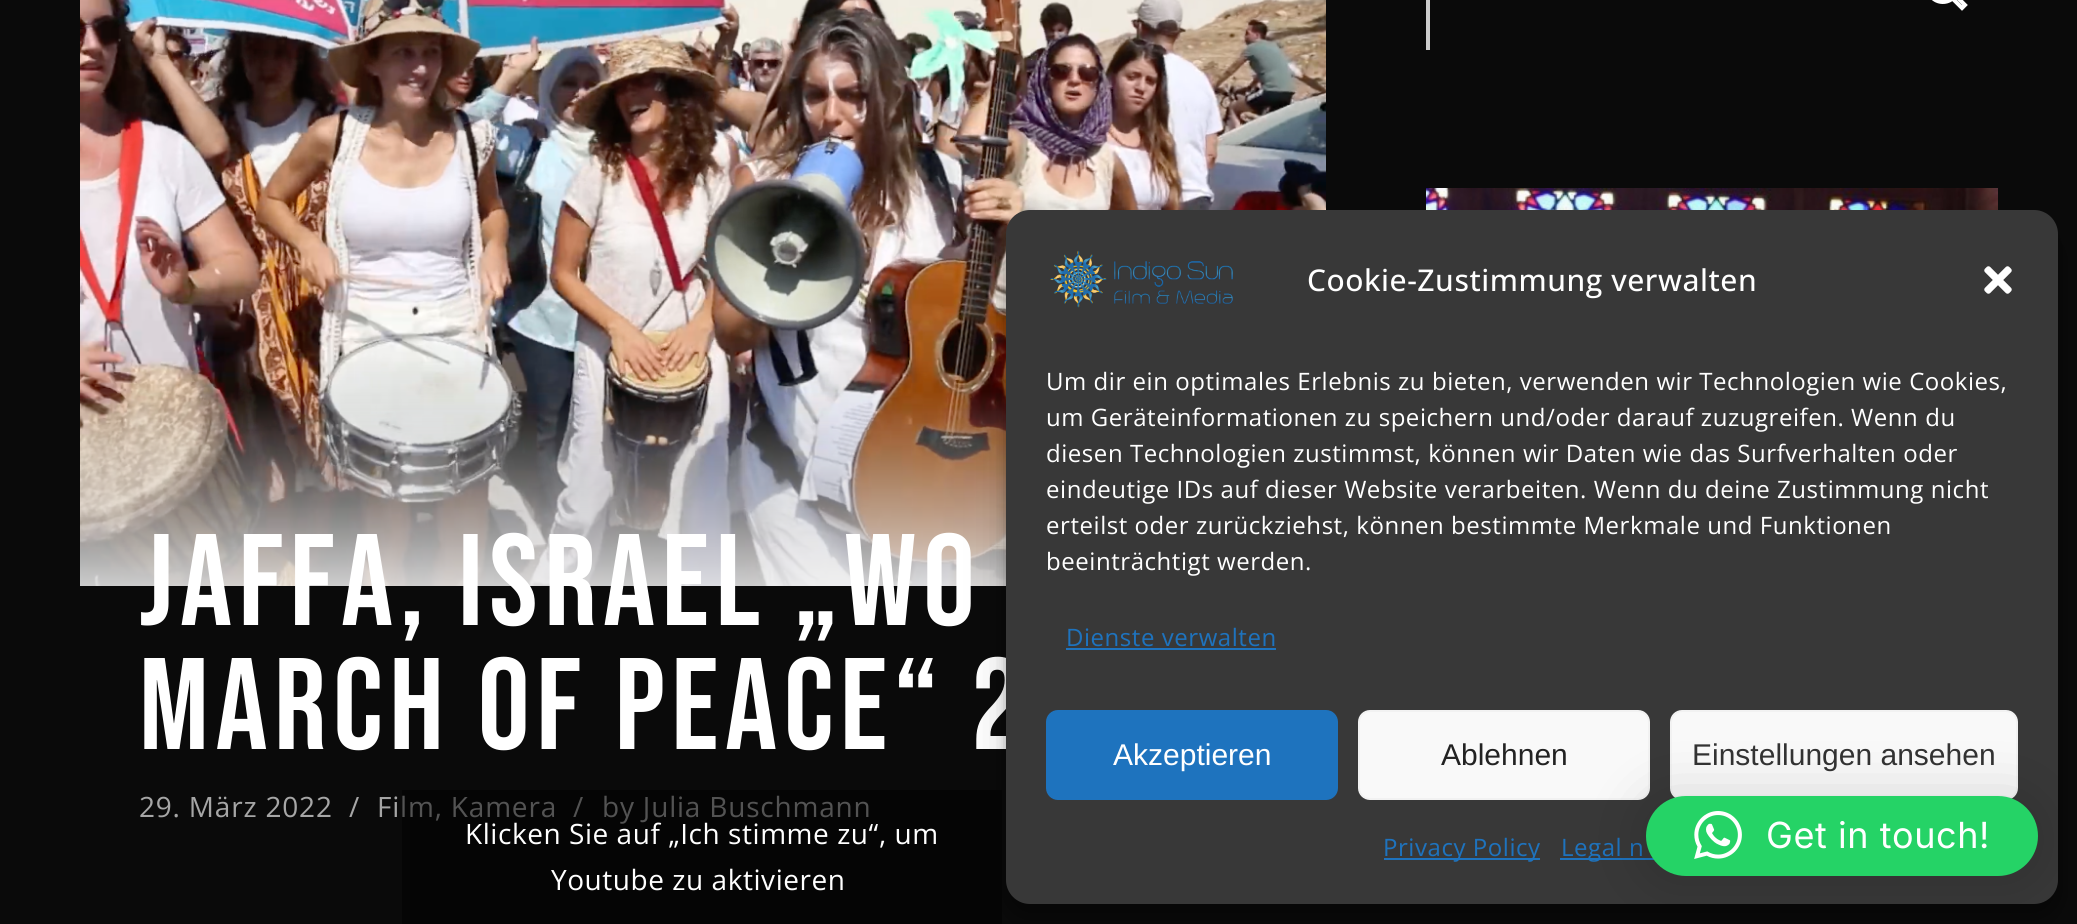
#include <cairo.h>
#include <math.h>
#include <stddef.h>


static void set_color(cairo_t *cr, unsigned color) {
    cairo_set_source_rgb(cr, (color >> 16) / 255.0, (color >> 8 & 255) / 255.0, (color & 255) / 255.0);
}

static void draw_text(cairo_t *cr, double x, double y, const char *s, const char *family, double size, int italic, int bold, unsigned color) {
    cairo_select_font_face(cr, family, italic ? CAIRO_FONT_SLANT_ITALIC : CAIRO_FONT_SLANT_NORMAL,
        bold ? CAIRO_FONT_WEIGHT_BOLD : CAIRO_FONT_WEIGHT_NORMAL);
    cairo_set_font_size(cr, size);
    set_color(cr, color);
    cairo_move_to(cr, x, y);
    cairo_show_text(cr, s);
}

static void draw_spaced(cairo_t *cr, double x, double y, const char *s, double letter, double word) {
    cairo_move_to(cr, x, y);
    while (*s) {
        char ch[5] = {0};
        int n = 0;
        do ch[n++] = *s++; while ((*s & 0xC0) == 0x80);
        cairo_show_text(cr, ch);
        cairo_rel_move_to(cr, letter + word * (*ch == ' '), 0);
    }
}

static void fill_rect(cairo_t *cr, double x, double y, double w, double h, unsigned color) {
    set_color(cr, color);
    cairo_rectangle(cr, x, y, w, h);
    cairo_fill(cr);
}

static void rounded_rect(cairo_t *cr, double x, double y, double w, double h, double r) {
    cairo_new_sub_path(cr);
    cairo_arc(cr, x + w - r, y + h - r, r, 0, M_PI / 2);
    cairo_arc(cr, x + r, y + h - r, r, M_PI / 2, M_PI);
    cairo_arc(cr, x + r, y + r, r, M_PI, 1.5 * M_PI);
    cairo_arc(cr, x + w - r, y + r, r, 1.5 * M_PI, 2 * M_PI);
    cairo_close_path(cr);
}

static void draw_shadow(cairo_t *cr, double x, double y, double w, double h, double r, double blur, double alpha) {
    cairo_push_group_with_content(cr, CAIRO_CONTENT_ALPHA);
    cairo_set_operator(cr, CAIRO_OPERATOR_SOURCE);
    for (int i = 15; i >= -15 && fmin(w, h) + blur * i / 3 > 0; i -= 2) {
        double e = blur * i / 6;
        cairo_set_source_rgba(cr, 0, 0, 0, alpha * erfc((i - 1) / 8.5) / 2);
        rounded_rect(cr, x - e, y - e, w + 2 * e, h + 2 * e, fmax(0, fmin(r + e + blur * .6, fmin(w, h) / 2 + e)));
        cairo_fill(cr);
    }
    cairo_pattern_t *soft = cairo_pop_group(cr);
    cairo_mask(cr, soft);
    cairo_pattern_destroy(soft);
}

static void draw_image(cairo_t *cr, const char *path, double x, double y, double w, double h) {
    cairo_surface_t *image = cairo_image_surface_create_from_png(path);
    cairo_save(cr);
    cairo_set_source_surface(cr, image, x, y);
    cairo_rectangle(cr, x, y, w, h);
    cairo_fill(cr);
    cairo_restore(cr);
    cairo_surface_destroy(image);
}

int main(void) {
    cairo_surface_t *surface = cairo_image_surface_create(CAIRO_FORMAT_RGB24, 2077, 924);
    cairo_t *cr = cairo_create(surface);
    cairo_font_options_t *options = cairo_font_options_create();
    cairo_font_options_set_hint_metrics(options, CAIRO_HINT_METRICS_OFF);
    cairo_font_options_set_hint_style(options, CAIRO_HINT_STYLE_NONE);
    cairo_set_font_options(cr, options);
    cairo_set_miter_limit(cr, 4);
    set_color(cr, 0x0A0A0A);
    cairo_paint(cr);
    fill_rect(cr, 1426, 0, 4, 50, 0xCCCCCC);
    cairo_new_path(cr);
    cairo_move_to(cr, 1965, 5);
    cairo_line_to(cr, 1962, 8);
    cairo_line_to(cr, 1952.5, -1.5);
    cairo_curve_to(cr, 1946, 4, 1935.5, 3, 1930.5, -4.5);
    cairo_curve_to(cr, 1928, -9, 1927, -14, 1929, -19);
    cairo_curve_to(cr, 1930.5, -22.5, 1933.5, -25.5, 1937, -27);
    cairo_curve_to(cr, 1951, -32.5, 1963.5, -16.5, 1955.5, -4.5);
    cairo_close_path(cr);
    set_color(cr, 0xFFFFFF);
    cairo_set_line_width(cr, 4);
    cairo_stroke(cr);
    draw_image(cr, "assets/img1.png", 1426, 188, 572, 22);
    draw_image(cr, "assets/img2.png", 80, 0, 1246, 586);
    cairo_select_font_face(cr, "Bebas Neue", CAIRO_FONT_SLANT_NORMAL, CAIRO_FONT_WEIGHT_NORMAL);
    cairo_set_font_size(cr, 130);
    draw_spaced(cr, 139, 625, "JAFFA, ISRAEL „WO", 6.5, 0);
    draw_spaced(cr, 139, 749, "MARCH OF PEACE“ 2", 6.5, 0);
    cairo_select_font_face(cr, "Open Sans", CAIRO_FONT_SLANT_NORMAL, CAIRO_FONT_WEIGHT_NORMAL);
    cairo_set_font_size(cr, 28);
    set_color(cr, 0xA6A6A6);
    draw_spaced(cr, 139, 817, "29. März 2022", 0.8, 0);
    draw_text(cr, 349, 817, "/", "Open Sans", 28, 0, 0, 0xA6A6A6);
    draw_spaced(cr, 377, 817, "Film, Kamera", 0.8, 0);
    draw_text(cr, 573, 817, "/", "Open Sans", 28, 0, 0, 0xA6A6A6);
    draw_spaced(cr, 602, 817, "by Julia Buschmann", 0.8, 0);
    cairo_set_source_rgba(cr, 0, 0, 0, 0.5);
    cairo_rectangle(cr, 402, 790, 600, 134);
    cairo_fill(cr);
    set_color(cr, 0xFFFFFF);
    draw_spaced(cr, 465, 844, "Klicken Sie auf „Ich stimme zu“, um", 0.55, 0);
    draw_spaced(cr, 551, 890, "Youtube zu aktivieren", 0.55, 0);
    set_color(cr, 0x000000);
    draw_shadow(cr, 1006, 222, 1052, 694, 24, 6, 0.23);
    draw_shadow(cr, 1006, 230, 1052, 694, 24, 20, 0.19);
    set_color(cr, 0x383838);
    rounded_rect(cr, 1006, 210, 1052, 694, 24);
    cairo_fill(cr);
    draw_image(cr, "assets/img3.png", 1050, 250, 183, 58);
    cairo_select_font_face(cr, "Open Sans Medium", CAIRO_FONT_SLANT_NORMAL, CAIRO_FONT_WEIGHT_NORMAL);
    cairo_set_font_size(cr, 30);
    set_color(cr, 0xFFFFFF);
    draw_spaced(cr, 1307, 291, "Cookie-Zustimmung verwalten", 0.55, 0);
    draw_image(cr, "assets/img4.png", 1984, 266, 28, 28);
    cairo_select_font_face(cr, "Open Sans", CAIRO_FONT_SLANT_NORMAL, CAIRO_FONT_WEIGHT_NORMAL);
    cairo_set_font_size(cr, 24);
    draw_spaced(cr, 1046, 390, "Um dir ein optimales Erlebnis zu bieten, verwenden wir Technologien wie Cookies,", 0.55, 0);
    draw_spaced(cr, 1046, 426, "um Geräteinformationen zu speichern und/oder darauf zuzugreifen. Wenn du", 0.55, 0);
    draw_spaced(cr, 1046, 462, "diesen Technologien zustimmst, können wir Daten wie das Surfverhalten oder", 0.55, 0);
    draw_spaced(cr, 1046, 498, "eindeutige IDs auf dieser Website verarbeiten. Wenn du deine Zustimmung nicht", 0.55, 0);
    draw_spaced(cr, 1046, 534, "erteilst oder zurückziehst, können bestimmte Merkmale und Funktionen", 0.55, 0);
    draw_spaced(cr, 1046, 570, "beeinträchtigt werden.", 0.55, 0);
    set_color(cr, 0x1E73BE);
    draw_spaced(cr, 1066, 646, "Dienste verwalten", 0.55, 0);
    fill_rect(cr, 1066, 648, 210, 2, 0x1E73BE);
    rounded_rect(cr, 1047, 711, 290, 88, 11);
    cairo_fill_preserve(cr);
    cairo_set_line_width(cr, 2);
    cairo_stroke(cr);
    draw_text(cr, 1113, 765, "Akzeptieren", "Liberation Sans", 30, 0, 0, 0xFFFFFF);
    set_color(cr, 0xF9F9F9);
    rounded_rect(cr, 1359, 711, 290, 88, 11);
    cairo_fill_preserve(cr);
    set_color(cr, 0xF2F2F2);
    cairo_stroke(cr);
    draw_text(cr, 1441, 765, "Ablehnen", "Liberation Sans", 30, 0, 0, 0x222222);
    set_color(cr, 0xF9F9F9);
    rounded_rect(cr, 1671, 711, 346, 88, 11);
    cairo_fill_preserve(cr);
    set_color(cr, 0xF2F2F2);
    cairo_stroke(cr);
    draw_text(cr, 1692, 765, "Einstellungen ansehen", "Liberation Sans", 30, 0, 0, 0x333333);
    fill_rect(cr, 1384, 858, 156, 2, 0x1E73BE);
    cairo_select_font_face(cr, "Open Sans", CAIRO_FONT_SLANT_NORMAL, CAIRO_FONT_WEIGHT_NORMAL);
    cairo_set_font_size(cr, 24);
    draw_spaced(cr, 1383, 856, "Privacy Policy", 0.55, 0);
    fill_rect(cr, 1560, 858, 94, 2, 0x1E73BE);
    draw_spaced(cr, 1561, 856, "Legal n", 0.55, 0);
    set_color(cr, 0x000000);
    draw_shadow(cr, 1646, 800, 392, 80, 40, 32, 0.16);
    set_color(cr, 0x25D366);
    rounded_rect(cr, 1646, 796, 392, 80, 40);
    cairo_fill(cr);
    draw_image(cr, "assets/img5.png", 1694, 811, 48, 48);
    cairo_select_font_face(cr, "Inter", CAIRO_FONT_SLANT_NORMAL, CAIRO_FONT_WEIGHT_NORMAL);
    cairo_set_font_size(cr, 36);
    set_color(cr, 0xFFFFFF);
    draw_spaced(cr, 1766, 848, "Get in touch!", 0.55, 0);
    cairo_surface_write_to_png(surface, "output.png");
    cairo_font_options_destroy(options);
    cairo_destroy(cr);
    cairo_surface_destroy(surface);
    return 0;
}
